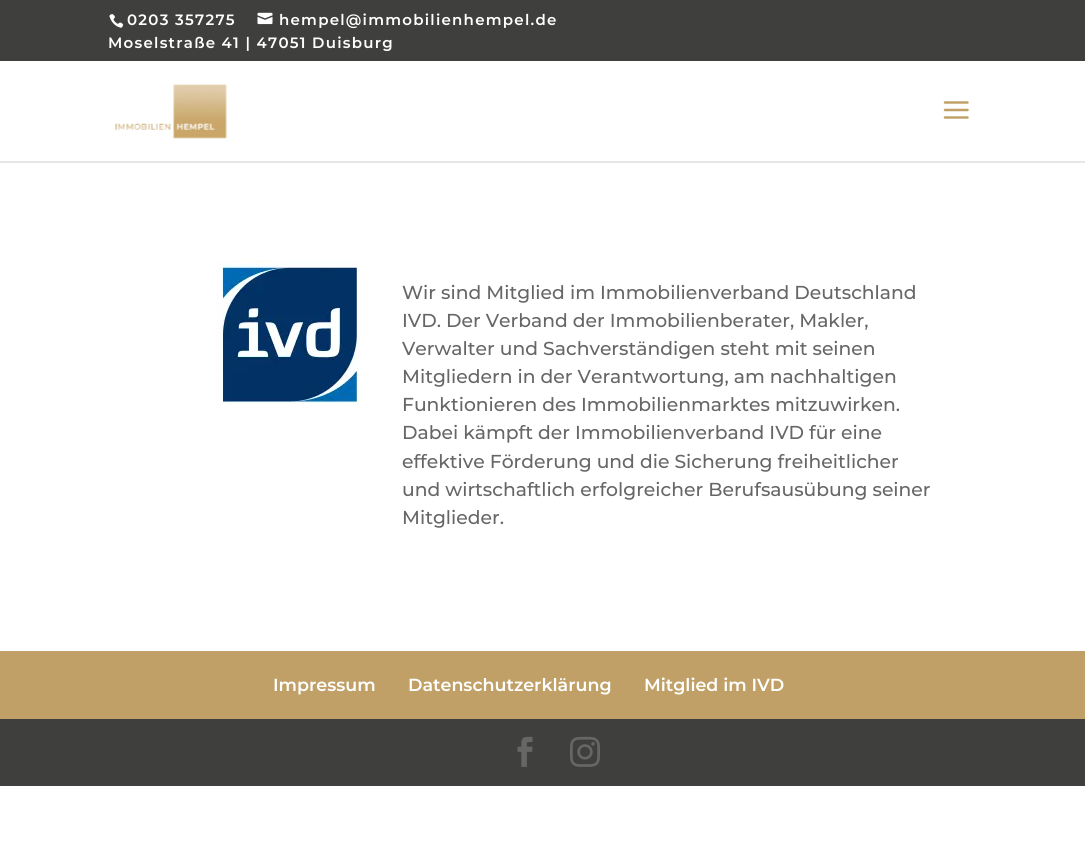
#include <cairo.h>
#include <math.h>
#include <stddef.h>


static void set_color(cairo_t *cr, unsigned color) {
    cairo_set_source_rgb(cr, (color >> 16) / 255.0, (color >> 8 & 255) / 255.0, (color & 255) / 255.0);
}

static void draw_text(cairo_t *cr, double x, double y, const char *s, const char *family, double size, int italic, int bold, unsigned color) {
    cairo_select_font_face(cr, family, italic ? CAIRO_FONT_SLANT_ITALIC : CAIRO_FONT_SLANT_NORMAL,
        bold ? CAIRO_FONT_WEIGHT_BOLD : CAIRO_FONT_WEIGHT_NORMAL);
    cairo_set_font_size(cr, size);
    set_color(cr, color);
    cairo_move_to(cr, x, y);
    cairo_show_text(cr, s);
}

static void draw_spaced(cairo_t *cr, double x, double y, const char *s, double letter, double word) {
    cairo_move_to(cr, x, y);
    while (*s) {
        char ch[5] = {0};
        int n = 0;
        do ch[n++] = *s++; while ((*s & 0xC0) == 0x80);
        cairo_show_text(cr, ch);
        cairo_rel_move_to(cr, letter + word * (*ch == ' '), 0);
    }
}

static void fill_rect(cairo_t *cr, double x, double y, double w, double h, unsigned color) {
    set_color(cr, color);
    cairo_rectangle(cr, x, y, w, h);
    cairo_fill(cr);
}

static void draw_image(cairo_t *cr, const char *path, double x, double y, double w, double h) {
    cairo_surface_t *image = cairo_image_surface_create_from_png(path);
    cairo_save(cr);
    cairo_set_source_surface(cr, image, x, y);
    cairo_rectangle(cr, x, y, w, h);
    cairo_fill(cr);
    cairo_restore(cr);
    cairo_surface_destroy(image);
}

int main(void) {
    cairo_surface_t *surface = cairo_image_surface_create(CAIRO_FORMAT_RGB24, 1085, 859);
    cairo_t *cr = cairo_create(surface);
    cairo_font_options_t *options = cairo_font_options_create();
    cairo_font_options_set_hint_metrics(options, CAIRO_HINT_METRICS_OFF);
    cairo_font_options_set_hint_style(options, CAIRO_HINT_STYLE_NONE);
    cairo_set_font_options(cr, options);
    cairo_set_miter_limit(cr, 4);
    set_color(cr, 0xFFFFFF);
    cairo_paint(cr);
    fill_rect(cr, 0, 0, 1085, 61, 0x3F403D);
    draw_image(cr, "assets/img1.png", 109, 14, 15, 14);
    cairo_select_font_face(cr, "Montserrat SemiBold", CAIRO_FONT_SLANT_NORMAL, CAIRO_FONT_WEIGHT_NORMAL);
    cairo_set_font_size(cr, 15);
    set_color(cr, 0xFFFFFF);
    draw_spaced(cr, 127, 25, "0203 357275", 1.25, 0);
    draw_image(cr, "assets/img2.png", 257, 12, 16, 13);
    draw_spaced(cr, 279, 25, "hempel@immobilienhempel.de", 1.25, 0);
    draw_spaced(cr, 108, 48, "Moselstraße 41 | 47051 Duisburg", 1.25, 0);
    fill_rect(cr, 0, 161, 1085, 2, 0xE6E6E6);
    draw_image(cr, "assets/img3.png", 115, 84, 112, 55);
    draw_image(cr, "assets/img4.png", 943, 101, 26, 18);
    draw_image(cr, "assets/img5.png", 215, 260, 144, 144);
    draw_text(cr, 402, 299, "Wir sind Mitglied im Immobilienverband Deutschland", "Montserrat Medium", 18.75, 0, 0, 0x666666);
    draw_text(cr, 402, 327, "IVD. Der Verband der Immobilienberater, Makler,", "Montserrat Medium", 18.75, 0, 0, 0x666666);
    draw_text(cr, 402, 355, "Verwalter und Sachverständigen steht mit seinen", "Montserrat Medium", 18.75, 0, 0, 0x666666);
    draw_text(cr, 402, 383, "Mitgliedern in der Verantwortung, am nachhaltigen", "Montserrat Medium", 18.75, 0, 0, 0x666666);
    draw_text(cr, 402, 411, "Funktionieren des Immobilienmarktes mitzuwirken.", "Montserrat Medium", 18.75, 0, 0, 0x666666);
    draw_text(cr, 402, 439, "Dabei kämpft der Immobilienverband IVD für eine", "Montserrat Medium", 18.75, 0, 0, 0x666666);
    draw_text(cr, 402, 468, "effektive Förderung und die Sicherung freiheitlicher", "Montserrat Medium", 18.75, 0, 0, 0x666666);
    draw_text(cr, 402, 496, "und wirtschaftlich erfolgreicher Berufsausübung seiner", "Montserrat Medium", 18.75, 0, 0, 0x666666);
    draw_text(cr, 402, 524, "Mitglieder.", "Montserrat Medium", 18.75, 0, 0, 0x666666);
    fill_rect(cr, 0, 651, 1085, 68, 0xC0A067);
    draw_text(cr, 273, 691, "Impressum", "Montserrat SemiBold", 17.5, 0, 0, 0xFFFFFF);
    draw_text(cr, 408, 691, "Datenschutzerklärung", "Montserrat SemiBold", 17.5, 0, 0, 0xFFFFFF);
    draw_text(cr, 644, 691, "Mitglied im IVD", "Montserrat SemiBold", 17.5, 0, 0, 0xFFFFFF);
    fill_rect(cr, 0, 719, 1085, 67, 0x3F403D);
    draw_image(cr, "assets/img6.png", 517, 736, 16, 31);
    draw_image(cr, "assets/img7.png", 570, 736, 30, 31);
    cairo_surface_write_to_png(surface, "output.png");
    cairo_font_options_destroy(options);
    cairo_destroy(cr);
    cairo_surface_destroy(surface);
    return 0;
}
